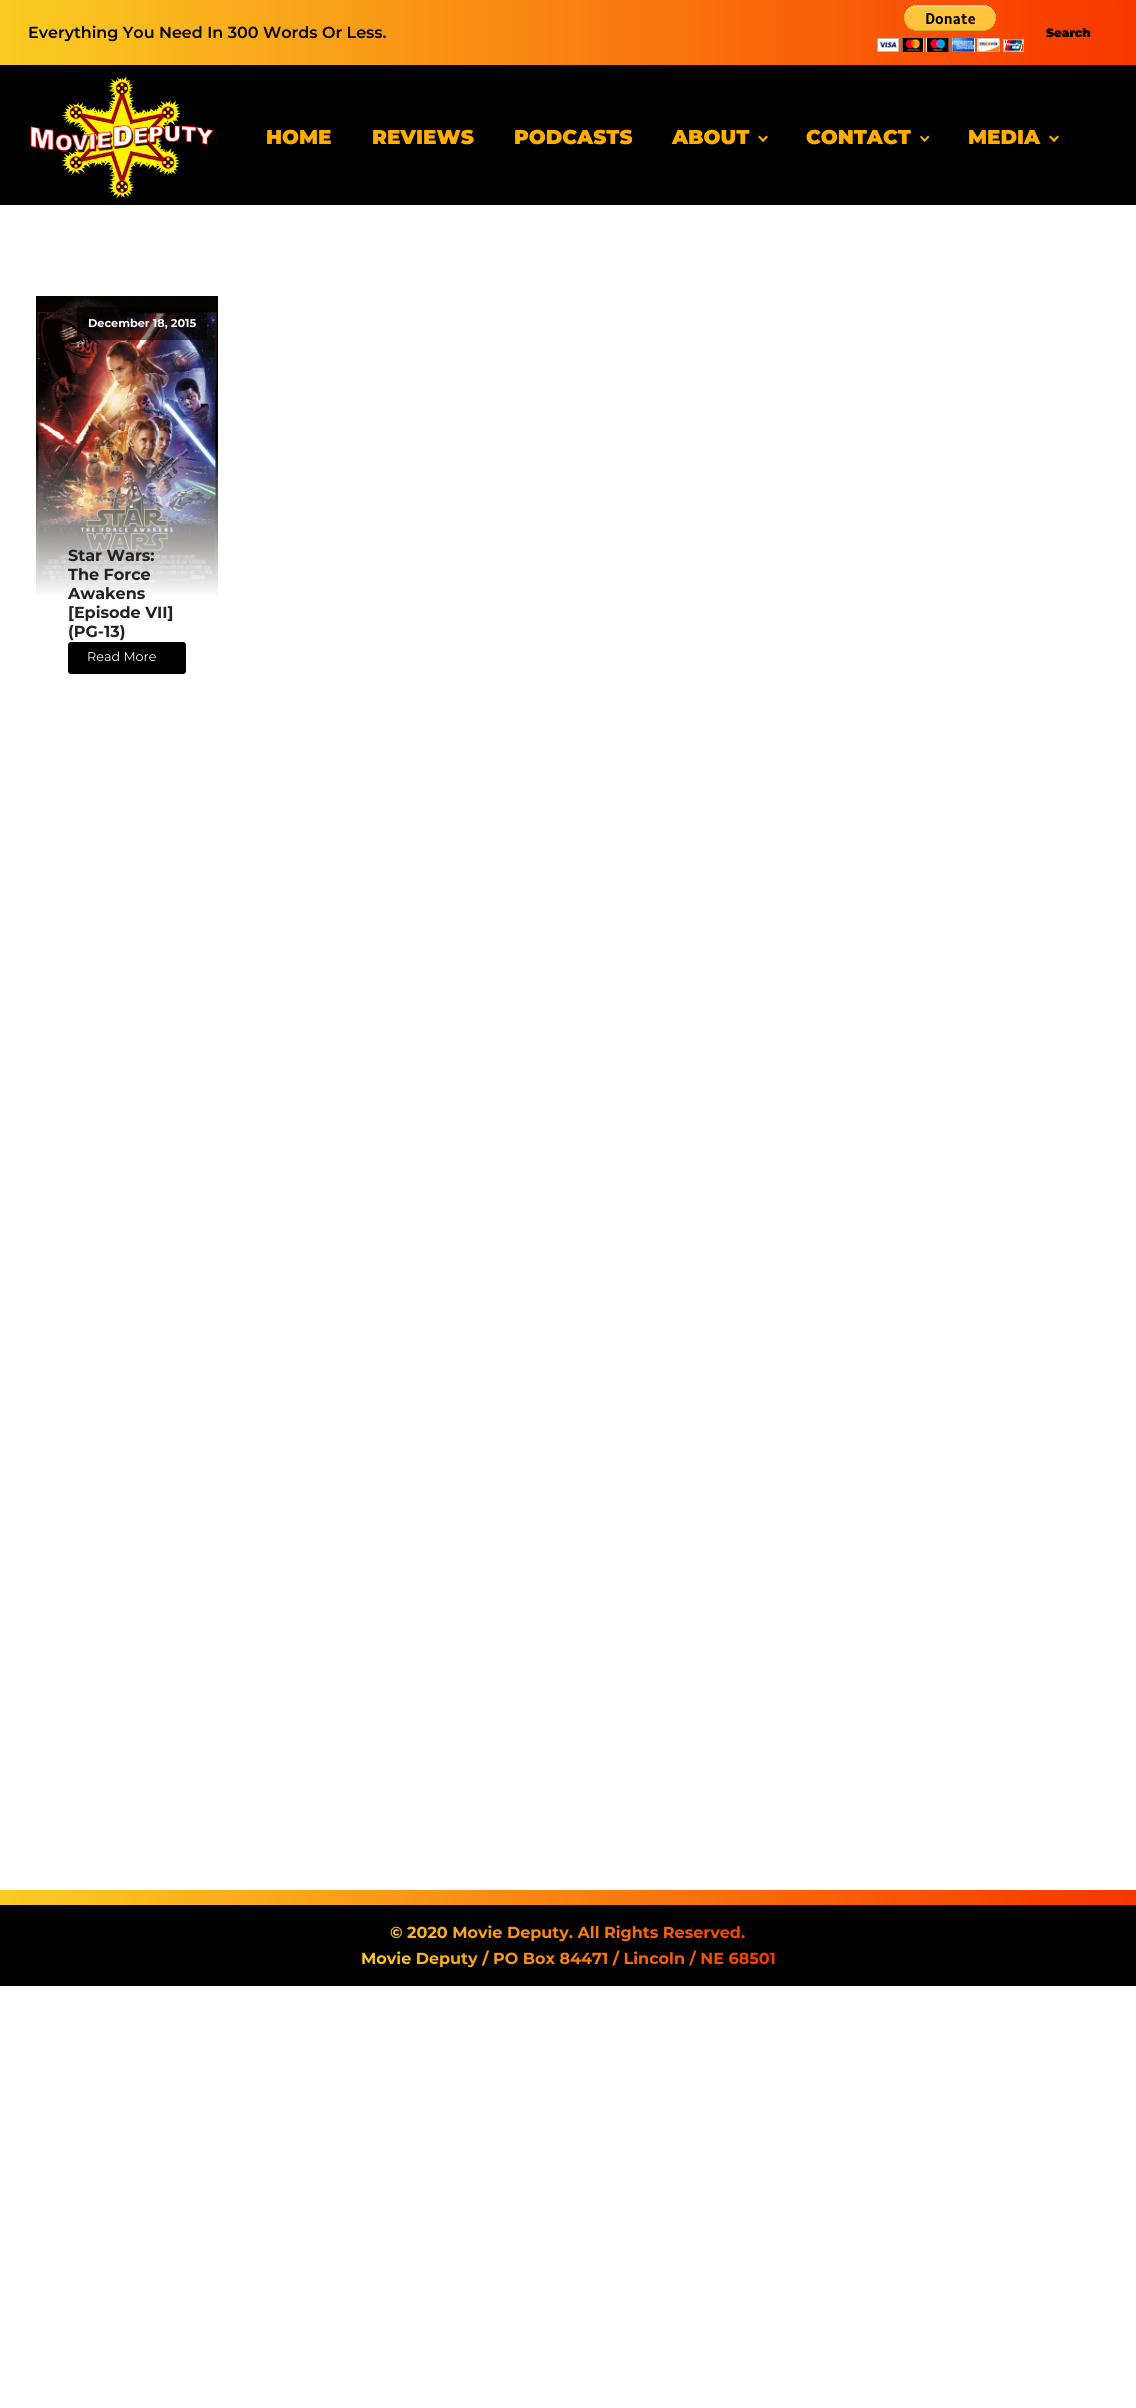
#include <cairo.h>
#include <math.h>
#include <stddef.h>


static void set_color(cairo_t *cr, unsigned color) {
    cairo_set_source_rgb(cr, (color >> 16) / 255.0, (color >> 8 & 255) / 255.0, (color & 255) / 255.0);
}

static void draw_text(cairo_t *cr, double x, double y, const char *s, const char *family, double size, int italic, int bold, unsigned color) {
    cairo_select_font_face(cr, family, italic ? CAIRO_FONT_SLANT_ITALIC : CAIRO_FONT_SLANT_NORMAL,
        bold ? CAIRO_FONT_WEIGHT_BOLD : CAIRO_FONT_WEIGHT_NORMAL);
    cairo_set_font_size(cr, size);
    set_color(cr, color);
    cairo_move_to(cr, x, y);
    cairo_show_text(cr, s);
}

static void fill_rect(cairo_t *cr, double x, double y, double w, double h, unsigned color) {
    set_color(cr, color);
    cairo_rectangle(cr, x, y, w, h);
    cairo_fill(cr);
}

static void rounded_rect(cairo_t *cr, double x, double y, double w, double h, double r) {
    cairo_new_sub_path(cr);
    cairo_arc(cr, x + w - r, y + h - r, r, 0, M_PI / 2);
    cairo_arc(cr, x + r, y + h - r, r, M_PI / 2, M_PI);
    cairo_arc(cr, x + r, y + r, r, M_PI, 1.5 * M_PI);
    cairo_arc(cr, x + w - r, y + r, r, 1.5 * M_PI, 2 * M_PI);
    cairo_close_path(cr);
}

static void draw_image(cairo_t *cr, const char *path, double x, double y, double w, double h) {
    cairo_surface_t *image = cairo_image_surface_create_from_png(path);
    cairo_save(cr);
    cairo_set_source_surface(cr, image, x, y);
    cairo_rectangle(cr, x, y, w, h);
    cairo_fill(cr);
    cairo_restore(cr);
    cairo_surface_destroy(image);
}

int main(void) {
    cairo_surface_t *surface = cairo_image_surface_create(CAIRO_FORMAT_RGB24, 1136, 2408);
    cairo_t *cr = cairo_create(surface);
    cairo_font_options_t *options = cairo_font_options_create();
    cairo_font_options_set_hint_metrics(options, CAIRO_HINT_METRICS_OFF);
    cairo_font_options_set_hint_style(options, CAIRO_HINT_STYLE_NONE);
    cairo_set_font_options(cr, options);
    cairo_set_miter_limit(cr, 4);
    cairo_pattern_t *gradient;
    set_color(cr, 0xFFFFFF);
    cairo_paint(cr);
    gradient = cairo_pattern_create_linear(0, 33, 1136, 32);
    cairo_pattern_add_color_stop_rgba(gradient, 0, 0.98, 0.8, 0.133, 1);
    cairo_pattern_add_color_stop_rgba(gradient, 1, 0.973, 0.212, 0, 1);
    cairo_set_source(cr, gradient);
    cairo_pattern_destroy(gradient);
    cairo_rectangle(cr, 0, 0, 1136, 65);
    cairo_fill(cr);
    draw_text(cr, 28, 38, "Everything You Need In 300 Words Or Less.", "Montserrat SemiBold", 16, 0, 0, 0x000000);
    draw_image(cr, "assets/img1.png", 877, 5, 147, 47);
    draw_text(cr, 1046, 37, "Search", "Montserrat Black", 12, 0, 0, 0x000000);
    fill_rect(cr, 0, 65, 1136, 140, 0x000000);
    draw_image(cr, "assets/img2.png", 30, 76, 184, 123);
    draw_text(cr, 266, 144, "HOME", "Montserrat Black", 20, 0, 0, 0xFFAE00);
    draw_text(cr, 372, 144, "REVIEWS", "Montserrat Black", 20, 0, 0, 0xFFAE00);
    draw_text(cr, 514, 144, "PODCASTS", "Montserrat Black", 20, 0, 0, 0xFFAE00);
    draw_text(cr, 672, 144, "ABOUT", "Montserrat Black", 20, 0, 0, 0xFFAE00);
    cairo_new_path(cr);
    cairo_move_to(cr, 768, 137);
    cairo_line_to(cr, 763, 142);
    cairo_line_to(cr, 761.5, 140.5);
    cairo_line_to(cr, 766.5, 135.5);
    cairo_close_path(cr);
    cairo_fill(cr);
    cairo_new_path(cr);
    cairo_move_to(cr, 764.5, 140.5);
    cairo_line_to(cr, 763, 142);
    cairo_line_to(cr, 758, 137);
    cairo_line_to(cr, 759.5, 135.5);
    cairo_close_path(cr);
    cairo_fill(cr);
    draw_text(cr, 806, 144, "CONTACT", "Montserrat Black", 20, 0, 0, 0xFFAE00);
    cairo_new_path(cr);
    cairo_move_to(cr, 929.5, 137);
    cairo_line_to(cr, 924.5, 142);
    cairo_line_to(cr, 923.5, 140.5);
    cairo_line_to(cr, 928, 135.5);
    cairo_close_path(cr);
    cairo_fill(cr);
    cairo_new_path(cr);
    cairo_move_to(cr, 926, 140.5);
    cairo_line_to(cr, 924.5, 142);
    cairo_line_to(cr, 920, 137);
    cairo_line_to(cr, 921, 135.5);
    cairo_close_path(cr);
    cairo_fill(cr);
    draw_text(cr, 968, 144, "MEDIA", "Montserrat Black", 20, 0, 0, 0xFFAE00);
    cairo_new_path(cr);
    cairo_move_to(cr, 1059, 137);
    cairo_line_to(cr, 1054, 142);
    cairo_line_to(cr, 1052.5, 140.5);
    cairo_line_to(cr, 1057.5, 135.5);
    cairo_close_path(cr);
    cairo_fill(cr);
    cairo_new_path(cr);
    cairo_move_to(cr, 1055.5, 140.5);
    cairo_line_to(cr, 1054, 142);
    cairo_line_to(cr, 1049, 137);
    cairo_line_to(cr, 1050.5, 135.5);
    cairo_close_path(cr);
    cairo_fill(cr);
    draw_image(cr, "assets/img3.png", 36, 296, 182, 300);
    cairo_set_source_rgba(cr, 0, 0, 0, 0.5);
    cairo_rectangle(cr, 77, 307, 130, 33);
    cairo_fill(cr);
    draw_text(cr, 88, 327, "December 18, 2015", "Montserrat", 11.25, 0, 1, 0xFFFFFF);
    gradient = cairo_pattern_create_linear(127, 446, 127, 706);
    cairo_pattern_add_color_stop_rgba(gradient, 0, 1, 1, 1, 0);
    cairo_pattern_add_color_stop_rgba(gradient, 0.58, 1, 1, 1, 1);
    cairo_set_source(cr, gradient);
    cairo_pattern_destroy(gradient);
    cairo_rectangle(cr, 36, 449, 182, 147);
    cairo_fill(cr);
    draw_text(cr, 68, 561, "Star Wars:", "Montserrat", 16, 0, 1, 0x222222);
    draw_text(cr, 68, 580, "The Force", "Montserrat", 16, 0, 1, 0x222222);
    draw_text(cr, 68, 599, "Awakens", "Montserrat", 16, 0, 1, 0x222222);
    draw_text(cr, 68, 618, "[Episode VII]", "Montserrat", 16, 0, 1, 0x222222);
    draw_text(cr, 68, 637, "(PG-13)", "Montserrat", 16, 0, 1, 0x222222);
    set_color(cr, 0x000000);
    rounded_rect(cr, 68, 642, 118, 32, 3);
    cairo_fill(cr);
    draw_text(cr, 87, 661, "Read More", "Montserrat", 12.75, 0, 0, 0xFFFFFF);
    gradient = cairo_pattern_create_linear(1136, 1898, 0, 1898);
    cairo_pattern_add_color_stop_rgba(gradient, 0, 0.973, 0.212, 0, 1);
    cairo_pattern_add_color_stop_rgba(gradient, 1, 0.98, 0.8, 0.133, 1);
    cairo_set_source(cr, gradient);
    cairo_pattern_destroy(gradient);
    cairo_rectangle(cr, 0, 1890, 1136, 15);
    cairo_fill(cr);
    fill_rect(cr, 0, 1905, 1136, 81, 0x000000);
    cairo_select_font_face(cr, "Montserrat", CAIRO_FONT_SLANT_NORMAL, CAIRO_FONT_WEIGHT_BOLD);
    cairo_set_font_size(cr, 16);
    gradient = cairo_pattern_create_linear(361, 1946, 775, 1946);
    cairo_pattern_add_color_stop_rgba(gradient, 0, 0.98, 0.8, 0.133, 1);
    cairo_pattern_add_color_stop_rgba(gradient, 1, 0.973, 0.212, 0, 1);
    cairo_set_source(cr, gradient);
    cairo_pattern_destroy(gradient);
    cairo_move_to(cr, 390, 1938);
    cairo_show_text(cr, "© 2020 Movie Deputy. All Rights Reserved.");
    cairo_move_to(cr, 361, 1964);
    cairo_show_text(cr, "Movie Deputy / PO Box 84471 / Lincoln / NE 68501");
    cairo_surface_write_to_png(surface, "output.png");
    cairo_font_options_destroy(options);
    cairo_destroy(cr);
    cairo_surface_destroy(surface);
    return 0;
}
